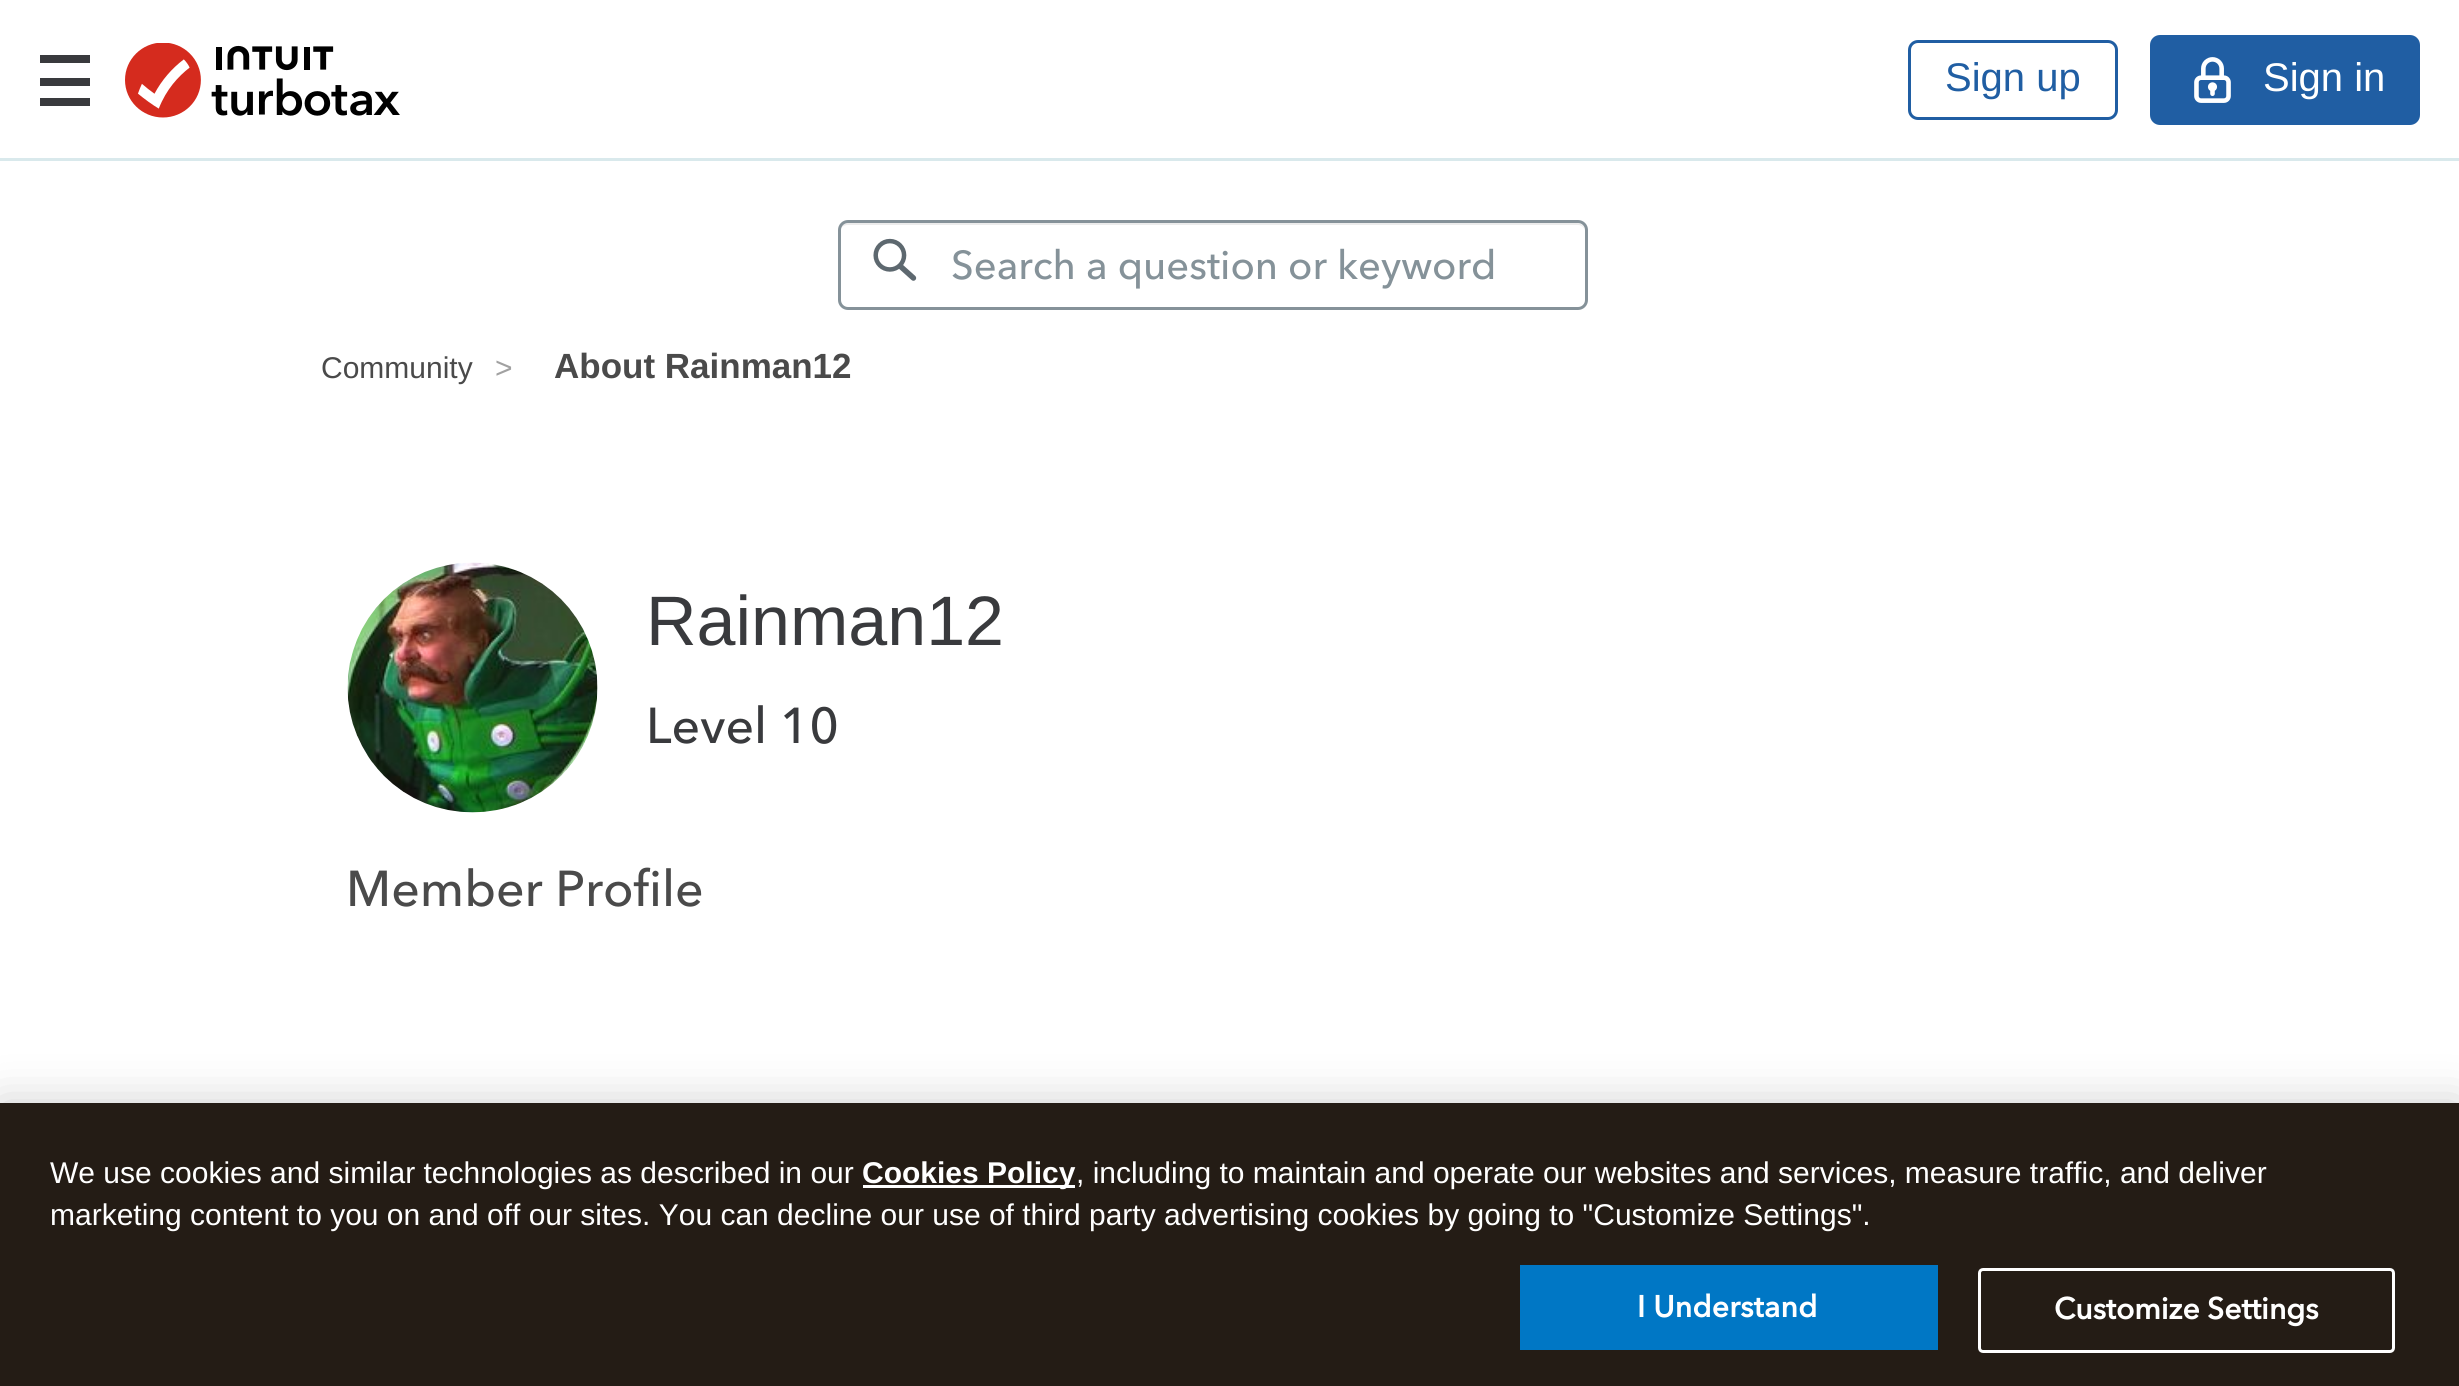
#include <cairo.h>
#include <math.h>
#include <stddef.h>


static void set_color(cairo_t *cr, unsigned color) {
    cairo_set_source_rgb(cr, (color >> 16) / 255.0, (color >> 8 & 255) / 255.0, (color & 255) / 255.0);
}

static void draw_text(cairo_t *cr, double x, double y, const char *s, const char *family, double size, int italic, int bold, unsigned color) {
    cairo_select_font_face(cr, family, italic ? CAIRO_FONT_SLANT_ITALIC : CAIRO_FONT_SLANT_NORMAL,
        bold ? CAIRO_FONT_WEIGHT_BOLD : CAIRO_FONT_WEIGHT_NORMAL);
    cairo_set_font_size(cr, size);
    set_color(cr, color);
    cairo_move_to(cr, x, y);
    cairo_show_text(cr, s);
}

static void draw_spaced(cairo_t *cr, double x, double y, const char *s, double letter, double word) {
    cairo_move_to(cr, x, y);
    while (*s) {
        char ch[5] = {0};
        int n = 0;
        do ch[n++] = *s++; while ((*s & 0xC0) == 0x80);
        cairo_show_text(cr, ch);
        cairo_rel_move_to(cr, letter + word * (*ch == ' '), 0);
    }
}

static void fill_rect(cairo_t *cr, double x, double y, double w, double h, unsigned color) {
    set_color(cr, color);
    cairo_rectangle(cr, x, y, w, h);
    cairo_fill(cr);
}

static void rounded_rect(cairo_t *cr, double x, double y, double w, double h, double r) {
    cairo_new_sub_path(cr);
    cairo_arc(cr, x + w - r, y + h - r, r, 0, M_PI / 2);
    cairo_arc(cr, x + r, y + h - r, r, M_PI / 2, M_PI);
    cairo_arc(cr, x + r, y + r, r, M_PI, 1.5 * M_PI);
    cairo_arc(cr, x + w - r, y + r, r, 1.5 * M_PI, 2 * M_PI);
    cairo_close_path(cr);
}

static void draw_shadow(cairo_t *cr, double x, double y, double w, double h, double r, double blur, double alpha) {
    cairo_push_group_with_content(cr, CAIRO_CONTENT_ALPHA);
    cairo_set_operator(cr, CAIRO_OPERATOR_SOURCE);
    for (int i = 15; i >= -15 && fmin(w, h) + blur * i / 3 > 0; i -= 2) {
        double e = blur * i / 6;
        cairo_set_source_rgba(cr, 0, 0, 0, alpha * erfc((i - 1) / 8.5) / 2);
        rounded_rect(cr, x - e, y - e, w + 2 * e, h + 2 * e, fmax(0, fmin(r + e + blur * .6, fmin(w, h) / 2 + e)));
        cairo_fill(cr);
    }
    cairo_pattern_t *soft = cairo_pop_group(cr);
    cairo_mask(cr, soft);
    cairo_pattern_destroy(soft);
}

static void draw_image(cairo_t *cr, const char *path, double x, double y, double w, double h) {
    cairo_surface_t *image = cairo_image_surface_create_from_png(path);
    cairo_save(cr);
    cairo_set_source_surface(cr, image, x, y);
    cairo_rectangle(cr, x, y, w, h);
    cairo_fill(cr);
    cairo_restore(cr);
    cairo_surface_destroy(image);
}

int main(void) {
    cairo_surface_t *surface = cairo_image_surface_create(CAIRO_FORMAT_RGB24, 2459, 1386);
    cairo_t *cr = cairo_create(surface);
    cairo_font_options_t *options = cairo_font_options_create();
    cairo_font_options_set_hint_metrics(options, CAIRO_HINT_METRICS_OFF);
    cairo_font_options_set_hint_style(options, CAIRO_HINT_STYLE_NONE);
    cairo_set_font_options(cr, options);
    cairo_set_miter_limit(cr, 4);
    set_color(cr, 0xFFFFFF);
    cairo_paint(cr);
    fill_rect(cr, 40, 78, 50, 8, 0x393A3D);
    fill_rect(cr, 40, 55, 50, 8, 0x393A3D);
    fill_rect(cr, 40, 98, 50, 8, 0x393A3D);
    draw_image(cr, "assets/img1.png", 125, 43, 275, 75);
    rounded_rect(cr, 1909.5, 41.5, 207, 77, 8.5);
    set_color(cr, 0x205EA3);
    cairo_set_line_width(cr, 3);
    cairo_stroke(cr);
    draw_text(cr, 1945, 91, "Sign up", "Liberation Sans", 40, 0, 0, 0x205EA3);
    rounded_rect(cr, 2150, 35, 270, 90, 10);
    cairo_fill(cr);
    draw_image(cr, "assets/img2.png", 2194, 57, 37, 46);
    draw_text(cr, 2263, 91, "Sign in", "Liberation Sans", 40, 0, 0, 0xFFFFFF);
    fill_rect(cr, 0, 158, 2459, 3, 0xD9E9EC);
    set_color(cr, 0xECECEC);
    cairo_new_path(cr);
    cairo_move_to(cr, 848, 225);
    cairo_line_to(cr, 1578, 225);
    cairo_curve_to(cr, 1582, 225, 1585, 228, 1585, 232);
    cairo_curve_to(cr, 1585, 227, 1582, 223, 1577, 223);
    cairo_line_to(cr, 848, 223);
    cairo_curve_to(cr, 843, 223, 840, 227, 840, 232);
    cairo_curve_to(cr, 840, 228, 843, 225, 848, 225);
    cairo_close_path(cr);
    cairo_fill(cr);
    rounded_rect(cr, 839.5, 221.5, 747, 87, 8.5);
    set_color(cr, 0x859299);
    cairo_stroke(cr);
    draw_image(cr, "assets/img3.png", 873, 238, 44, 43);
    draw_text(cr, 951, 279, "Search a question or keyword", "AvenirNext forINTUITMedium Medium", 40, 0, 0, 0x859299);
    draw_text(cr, 321, 378, "Community", "Liberation Sans", 30, 0, 0, 0x4A4A4A);
    draw_text(cr, 495, 378, ">", "Liberation Sans", 30, 0, 0, 0xA1A1A1);
    draw_text(cr, 554, 378, "About Rainman12", "Liberation Sans", 35, 0, 1, 0x4A4A4A);
    cairo_save(cr);
    cairo_rectangle(cr, 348, 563, 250, 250);
    cairo_clip(cr);
    cairo_set_fill_rule(cr, CAIRO_FILL_RULE_EVEN_ODD);
    cairo_new_path(cr);
    cairo_move_to(cr, 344, 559);
    cairo_line_to(cr, 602, 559);
    cairo_line_to(cr, 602, 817);
    cairo_line_to(cr, 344, 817);
    cairo_close_path(cr);
    cairo_move_to(cr, 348, 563);
    cairo_line_to(cr, 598, 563);
    cairo_line_to(cr, 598, 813);
    cairo_line_to(cr, 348, 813);
    cairo_close_path(cr);
    cairo_clip(cr);
    set_color(cr, 0xC4C4C4);
    draw_shadow(cr, 348, 563, 250, 250, 0, 1, 1);
    cairo_restore(cr);
    draw_image(cr, "assets/img4.png", 347, 562, 251, 251);
    draw_text(cr, 646, 645, "Rainman12", "Liberation Sans", 70, 0, 0, 0x393A3D);
    draw_text(cr, 646, 743, "Level 10", "AvenirNext forINTUITMedium Medium", 50, 0, 0, 0x393A3D);
    draw_text(cr, 346, 906, "Member Profile", "AvenirNext forINTUITMedium Medium", 50, 0, 0, 0x4A4A4A);
    set_color(cr, 0x000000);
    draw_shadow(cr, 0, 1103, 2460, 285, 0, 22.5, 0.2);
    fill_rect(cr, 0, 1103, 2459, 283, 0x241C15);
    draw_text(cr, 50, 1183, "We use cookies and similar technologies as described in our", "Liberation Sans", 30, 0, 0, 0xFFFFFF);
    fill_rect(cr, 863, 1185, 212, 3, 0xFFFFFF);
    draw_text(cr, 862, 1183, "Cookies Policy", "Liberation Sans", 30, 0, 1, 0xFFFFFF);
    draw_text(cr, 1076, 1183, ", including to maintain and operate our websites and services, measure traffic, and deliver", "Liberation Sans", 30, 0, 0, 0xFFFFFF);
    draw_text(cr, 50, 1225, "marketing content to you on and off our sites. You can decline our use of third party advertising cookies by going to \"Customize Settings\".", "Liberation Sans", 30, 0, 0, 0xFFFFFF);
    rounded_rect(cr, 1979.5, 1269.5, 414, 82, 3.5);
    cairo_stroke(cr);
    draw_text(cr, 2054, 1319, "Customize Settings", "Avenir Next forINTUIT", 30, 0, 1, 0xFFFFFF);
    fill_rect(cr, 1520, 1265, 418, 85, 0x0077C5);
    set_color(cr, 0xFFFFFF);
    draw_spaced(cr, 1637, 1317, "I Understand", 0.25, 0);
    cairo_surface_write_to_png(surface, "output.png");
    cairo_font_options_destroy(options);
    cairo_destroy(cr);
    cairo_surface_destroy(surface);
    return 0;
}
